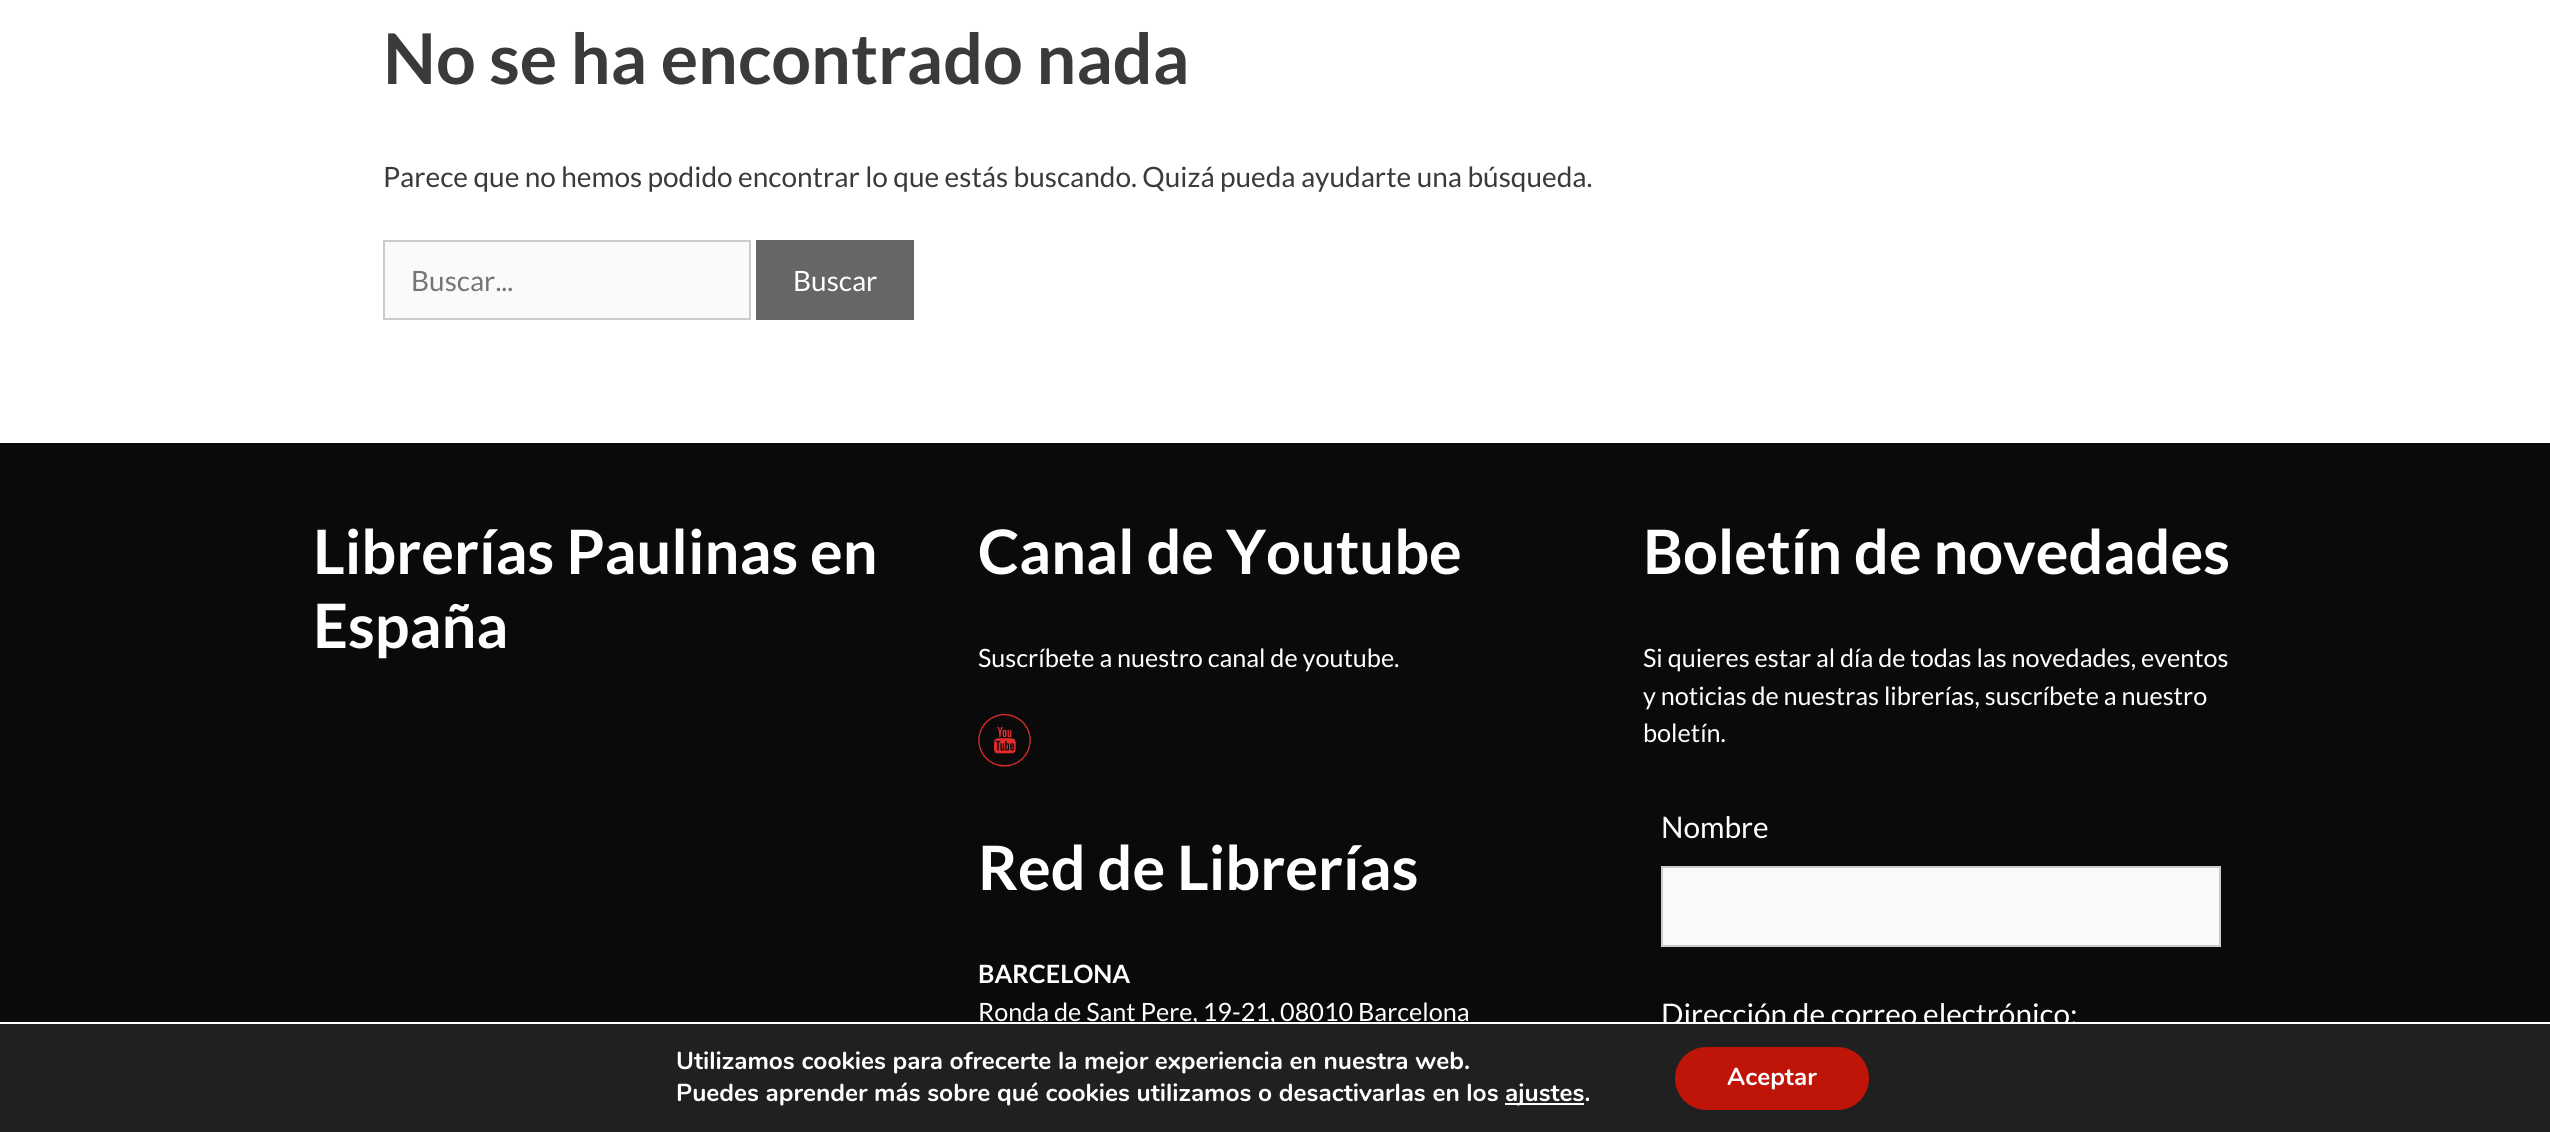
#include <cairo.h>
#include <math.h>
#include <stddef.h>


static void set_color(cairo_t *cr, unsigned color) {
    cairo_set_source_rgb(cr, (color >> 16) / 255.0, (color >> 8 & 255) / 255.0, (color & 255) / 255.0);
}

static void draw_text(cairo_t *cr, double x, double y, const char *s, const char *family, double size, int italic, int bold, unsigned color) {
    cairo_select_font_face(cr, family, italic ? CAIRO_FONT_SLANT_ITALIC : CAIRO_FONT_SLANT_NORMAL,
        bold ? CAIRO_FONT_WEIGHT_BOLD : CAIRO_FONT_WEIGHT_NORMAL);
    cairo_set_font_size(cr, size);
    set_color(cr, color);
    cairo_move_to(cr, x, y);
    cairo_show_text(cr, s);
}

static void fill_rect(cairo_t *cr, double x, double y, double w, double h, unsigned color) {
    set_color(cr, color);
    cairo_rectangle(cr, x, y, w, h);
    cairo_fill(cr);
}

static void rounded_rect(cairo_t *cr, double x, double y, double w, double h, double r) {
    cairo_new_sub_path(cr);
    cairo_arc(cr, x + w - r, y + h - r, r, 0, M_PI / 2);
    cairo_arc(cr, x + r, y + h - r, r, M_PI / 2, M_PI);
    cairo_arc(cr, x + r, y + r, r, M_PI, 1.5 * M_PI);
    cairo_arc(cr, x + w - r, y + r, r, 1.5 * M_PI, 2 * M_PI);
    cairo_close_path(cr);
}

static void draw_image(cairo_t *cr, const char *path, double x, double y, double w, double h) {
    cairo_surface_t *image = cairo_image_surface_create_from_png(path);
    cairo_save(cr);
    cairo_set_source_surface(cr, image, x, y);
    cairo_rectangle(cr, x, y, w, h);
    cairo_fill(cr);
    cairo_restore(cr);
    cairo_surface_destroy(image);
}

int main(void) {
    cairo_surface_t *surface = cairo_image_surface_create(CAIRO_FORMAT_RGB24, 2550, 1132);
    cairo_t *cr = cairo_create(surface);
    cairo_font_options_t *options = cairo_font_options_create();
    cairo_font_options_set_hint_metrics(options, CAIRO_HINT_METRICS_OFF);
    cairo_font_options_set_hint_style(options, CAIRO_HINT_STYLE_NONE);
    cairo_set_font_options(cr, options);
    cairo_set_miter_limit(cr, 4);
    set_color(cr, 0xFFFFFF);
    cairo_paint(cr);
    draw_text(cr, 383, 84, "No se ha encontrado nada", "Lato", 70, 0, 1, 0x3A3A3A);
    draw_text(cr, 383, 187, "Parece que no hemos podido encontrar lo que estás buscando. Quizá pueda ayudarte una búsqueda.", "Lato", 28, 0, 0, 0x3A3A3A);
    set_color(cr, 0xFAFAFA);
    cairo_rectangle(cr, 384, 241, 366, 78);
    cairo_fill_preserve(cr);
    set_color(cr, 0xCCCCCC);
    cairo_stroke(cr);
    draw_text(cr, 411, 291, "Buscar...", "Lato", 28, 0, 0, 0x757575);
    fill_rect(cr, 756, 240, 158, 80, 0x666666);
    draw_text(cr, 793, 291, "Buscar", "Lato", 28, 0, 0, 0xFFFFFF);
    fill_rect(cr, 0, 443, 2550, 579, 0x0A0A0A);
    draw_text(cr, 313, 574, "Librerías Paulinas en", "Lato", 61.25, 0, 1, 0xFFFFFF);
    draw_text(cr, 313, 648, "España", "Lato", 61.25, 0, 1, 0xFFFFFF);
    draw_text(cr, 978, 574, "Canal de Youtube", "Lato", 61.25, 0, 1, 0xFFFFFF);
    draw_text(cr, 978, 667, "Suscríbete a nuestro canal de youtube.", "Lato", 25.2, 0, 0, 0xFFFFFF);
    draw_image(cr, "assets/img1.png", 978, 714, 53, 53);
    draw_text(cr, 978, 890, "Red de Librerías", "Lato", 61.25, 0, 1, 0xFFFFFF);
    draw_text(cr, 978, 983, "BARCELONA", "Lato", 25.2, 0, 1, 0xFFFFFF);
    draw_text(cr, 978, 1021, "Ronda de Sant Pere, 19-21, 08010 Barcelona", "Lato", 25.2, 0, 0, 0xFFFFFF);
    draw_text(cr, 1643, 574, "Boletín de novedades", "Lato", 61.25, 0, 1, 0xFFFFFF);
    draw_text(cr, 1643, 667, "Si quieres estar al día de todas las novedades, eventos", "Lato", 25.2, 0, 0, 0xFFFFFF);
    draw_text(cr, 1643, 705, "y noticias de nuestras librerías, suscríbete a nuestro", "Lato", 25.2, 0, 0, 0xFFFFFF);
    draw_text(cr, 1643, 742, "boletín.", "Lato", 25.2, 0, 0, 0xFFFFFF);
    draw_text(cr, 1661, 838, "Nombre", "Lato", 29.75, 0, 0, 0xFFFFFF);
    set_color(cr, 0xFAFAFA);
    cairo_rectangle(cr, 1662, 867, 558, 79);
    cairo_fill_preserve(cr);
    set_color(cr, 0xCCCCCC);
    cairo_stroke(cr);
    draw_text(cr, 1661, 1025, "Dirección de correo electrónico:", "Lato", 29.75, 0, 0, 0xFFFFFF);
    fill_rect(cr, 0, 1024, 2550, 108, 0x202020);
    draw_text(cr, 676, 1069, "Utilizamos cookies para ofrecerte la mejor experiencia en nuestra web.", "Nunito", 24.5, 0, 1, 0xFFFFFF);
    draw_text(cr, 676, 1101, "Puedes aprender más sobre qué cookies utilizamos o desactivarlas en los", "Nunito", 24.5, 0, 1, 0xFFFFFF);
    fill_rect(cr, 1505, 1103, 79, 2, 0xFFFFFF);
    draw_text(cr, 1505, 1101, "ajustes.", "Nunito", 24.5, 0, 1, 0xFFFFFF);
    set_color(cr, 0xBF1408);
    rounded_rect(cr, 1675, 1047, 194, 63, 31.5);
    cairo_fill(cr);
    draw_text(cr, 1727, 1085, "Aceptar", "Nunito", 24.5, 0, 1, 0xFFFFFF);
    cairo_surface_write_to_png(surface, "output.png");
    cairo_font_options_destroy(options);
    cairo_destroy(cr);
    cairo_surface_destroy(surface);
    return 0;
}
